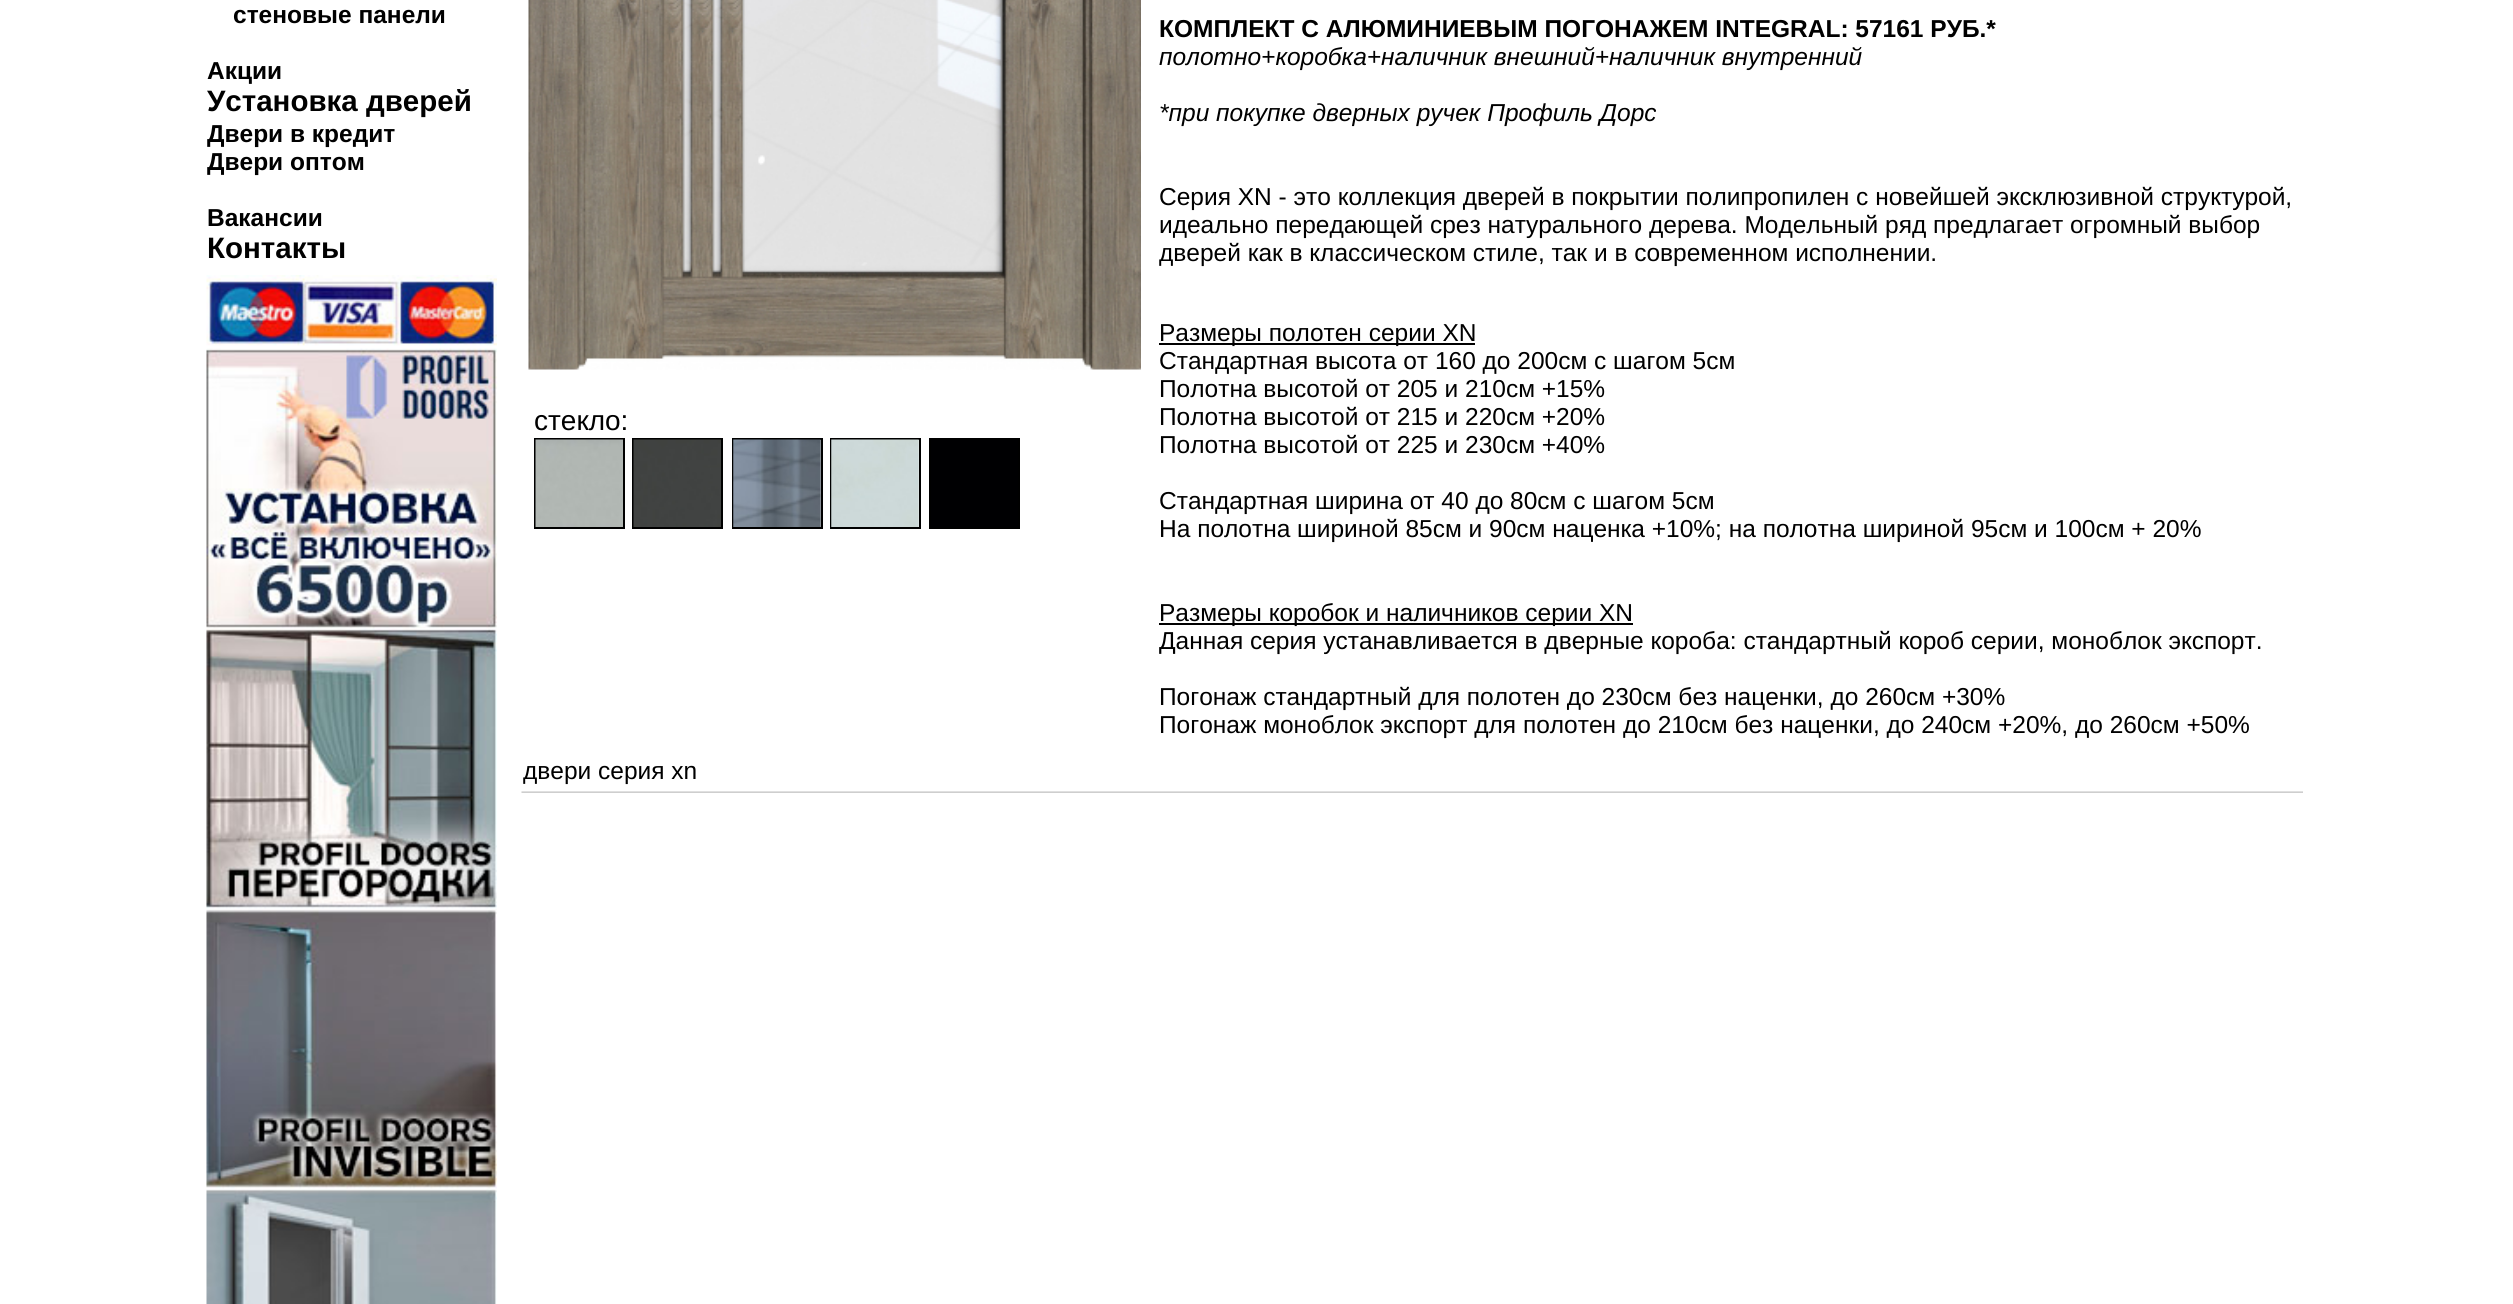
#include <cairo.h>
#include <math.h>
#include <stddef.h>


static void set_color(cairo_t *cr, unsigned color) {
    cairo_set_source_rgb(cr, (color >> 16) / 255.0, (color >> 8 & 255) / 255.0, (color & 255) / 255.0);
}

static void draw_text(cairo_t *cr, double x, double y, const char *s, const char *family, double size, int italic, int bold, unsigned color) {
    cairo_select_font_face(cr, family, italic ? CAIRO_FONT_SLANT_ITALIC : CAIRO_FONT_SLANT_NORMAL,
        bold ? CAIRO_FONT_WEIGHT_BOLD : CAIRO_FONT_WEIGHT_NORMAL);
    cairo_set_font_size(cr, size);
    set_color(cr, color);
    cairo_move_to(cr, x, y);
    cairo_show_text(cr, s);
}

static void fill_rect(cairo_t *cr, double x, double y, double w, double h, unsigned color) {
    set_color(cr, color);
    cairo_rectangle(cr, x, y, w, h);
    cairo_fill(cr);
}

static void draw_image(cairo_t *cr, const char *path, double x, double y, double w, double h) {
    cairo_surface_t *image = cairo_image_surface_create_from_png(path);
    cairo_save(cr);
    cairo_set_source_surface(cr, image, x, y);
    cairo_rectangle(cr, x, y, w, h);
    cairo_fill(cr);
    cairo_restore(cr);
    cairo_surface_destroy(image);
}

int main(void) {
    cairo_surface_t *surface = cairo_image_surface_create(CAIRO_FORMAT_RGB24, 2513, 1304);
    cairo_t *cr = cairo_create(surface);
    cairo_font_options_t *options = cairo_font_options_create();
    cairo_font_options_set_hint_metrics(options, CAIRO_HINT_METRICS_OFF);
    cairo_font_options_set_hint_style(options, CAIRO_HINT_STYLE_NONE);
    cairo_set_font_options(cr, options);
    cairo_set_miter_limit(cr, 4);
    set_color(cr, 0xFFFFFF);
    cairo_paint(cr);
    draw_text(cr, 233, 23, "стеновые панели", "Liberation Sans", 24.5, 0, 1, 0x000000);
    draw_text(cr, 207, 79, "Акции", "Liberation Sans", 24.5, 0, 1, 0x000000);
    draw_text(cr, 207, 111, "Установка дверей", "Liberation Sans", 29.5, 0, 1, 0x000000);
    draw_text(cr, 207, 142, "Двери в кредит", "Liberation Sans", 24.5, 0, 1, 0x000000);
    draw_text(cr, 207, 170, "Двери оптом", "Liberation Sans", 24.5, 0, 1, 0x000000);
    draw_text(cr, 207, 226, "Вакансии", "Liberation Sans", 24.5, 0, 1, 0x000000);
    draw_text(cr, 207, 258, "Контакты", "Liberation Sans", 29.5, 0, 1, 0x000000);
    draw_image(cr, "assets/img1.png", 206, 275, 291, 71);
    draw_image(cr, "assets/img2.png", 206, 348, 291, 281);
    draw_image(cr, "assets/img3.png", 206, 628, 291, 281);
    draw_image(cr, "assets/img4.png", 206, 909, 291, 280);
    draw_image(cr, "assets/img5.png", 206, 1189, 291, 115);
    draw_image(cr, "assets/img6.png", 528, 0, 613, 370);
    draw_text(cr, 534, 430, "стекло:", "Liberation Sans", 28, 0, 0, 0x000000);
    cairo_rectangle(cr, 535, 439, 89, 89);
    cairo_stroke(cr);
    draw_image(cr, "assets/img7.png", 535, 439, 88, 88);
    cairo_rectangle(cr, 633, 439, 89, 89);
    cairo_stroke(cr);
    draw_image(cr, "assets/img8.png", 633, 439, 88, 88);
    cairo_rectangle(cr, 733, 439, 89, 89);
    cairo_stroke(cr);
    draw_image(cr, "assets/img9.png", 733, 439, 88, 88);
    cairo_rectangle(cr, 831, 439, 89, 89);
    cairo_stroke(cr);
    draw_image(cr, "assets/img10.png", 831, 439, 88, 88);
    cairo_rectangle(cr, 930, 439, 89, 89);
    cairo_stroke(cr);
    fill_rect(cr, 931, 440, 87, 87, 0x000002);
    draw_text(cr, 1159, 37, "КОМПЛЕКТ С АЛЮМИНИЕВЫМ ПОГОНАЖЕМ INTEGRAL: 57161 РУБ.*", "Liberation Sans", 24.5, 0, 1, 0x000000);
    draw_text(cr, 1159, 65, "полотно+коробка+наличник внешний+наличник внутренний", "Liberation Sans", 24.5, 1, 0, 0x000000);
    draw_text(cr, 1159, 121, "*при покупке дверных ручек Профиль Дорс", "Liberation Sans", 24.5, 1, 0, 0x000000);
    draw_text(cr, 1159, 205, "Серия XN - это коллекция дверей в покрытии полипропилен с новейшей эксклюзивной структурой,", "Liberation Sans", 24.5, 0, 0, 0x000000);
    draw_text(cr, 1159, 233, "идеально передающей срез натурального дерева. Модельный ряд предлагает огромный выбор", "Liberation Sans", 24.5, 0, 0, 0x000000);
    draw_text(cr, 1159, 261, "дверей как в классическом стиле, так и в современном исполнении.", "Liberation Sans", 24.5, 0, 0, 0x000000);
    fill_rect(cr, 1159, 343, 316, 2, 0x000000);
    draw_text(cr, 1159, 341, "Размеры полотен серии XN", "Liberation Sans", 24.5, 0, 0, 0x000000);
    draw_text(cr, 1159, 369, "Стандартная высота от 160 до 200см с шагом 5см", "Liberation Sans", 24.5, 0, 0, 0x000000);
    draw_text(cr, 1159, 397, "Полотна высотой от 205 и 210см +15%", "Liberation Sans", 24.5, 0, 0, 0x000000);
    draw_text(cr, 1159, 425, "Полотна высотой от 215 и 220см +20%", "Liberation Sans", 24.5, 0, 0, 0x000000);
    draw_text(cr, 1159, 453, "Полотна высотой от 225 и 230см +40%", "Liberation Sans", 24.5, 0, 0, 0x000000);
    draw_text(cr, 1159, 509, "Стандартная ширина от 40 до 80см с шагом 5см", "Liberation Sans", 24.5, 0, 0, 0x000000);
    draw_text(cr, 1159, 537, "На полотна шириной 85cм и 90cм наценка +10%; на полотна шириной 95см и 100см + 20%", "Liberation Sans", 24.5, 0, 0, 0x000000);
    fill_rect(cr, 1159, 623, 474, 2, 0x000000);
    draw_text(cr, 1159, 621, "Размеры коробок и наличников серии XN", "Liberation Sans", 24.5, 0, 0, 0x000000);
    draw_text(cr, 1159, 649, "Данная серия устанавливается в дверные короба: стандартный короб серии, моноблок экспорт.", "Liberation Sans", 24.5, 0, 0, 0x000000);
    draw_text(cr, 1159, 705, "Погонаж стандартный для полотен до 230см без наценки, до 260см +30%", "Liberation Sans", 24.5, 0, 0, 0x000000);
    draw_text(cr, 1159, 733, "Погонаж моноблок экспорт для полотен до 210см без наценки, до 240см +20%, до 260см +50%", "Liberation Sans", 24.5, 0, 0, 0x000000);
    draw_image(cr, "assets/img11.png", 521, 791, 1782, 2);
    draw_text(cr, 523, 779, "двери серия xn", "Liberation Sans", 24.5, 0, 0, 0x000000);
    cairo_surface_write_to_png(surface, "output.png");
    cairo_font_options_destroy(options);
    cairo_destroy(cr);
    cairo_surface_destroy(surface);
    return 0;
}
